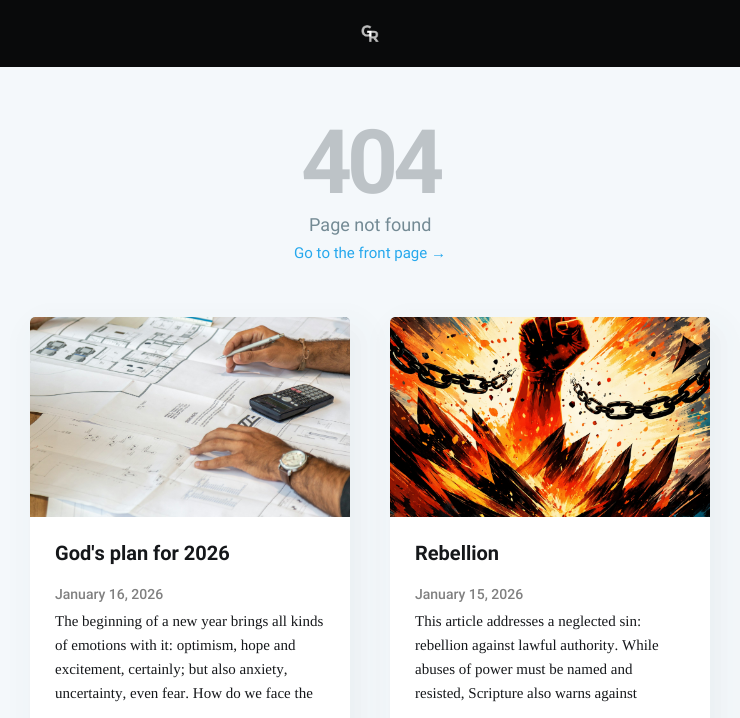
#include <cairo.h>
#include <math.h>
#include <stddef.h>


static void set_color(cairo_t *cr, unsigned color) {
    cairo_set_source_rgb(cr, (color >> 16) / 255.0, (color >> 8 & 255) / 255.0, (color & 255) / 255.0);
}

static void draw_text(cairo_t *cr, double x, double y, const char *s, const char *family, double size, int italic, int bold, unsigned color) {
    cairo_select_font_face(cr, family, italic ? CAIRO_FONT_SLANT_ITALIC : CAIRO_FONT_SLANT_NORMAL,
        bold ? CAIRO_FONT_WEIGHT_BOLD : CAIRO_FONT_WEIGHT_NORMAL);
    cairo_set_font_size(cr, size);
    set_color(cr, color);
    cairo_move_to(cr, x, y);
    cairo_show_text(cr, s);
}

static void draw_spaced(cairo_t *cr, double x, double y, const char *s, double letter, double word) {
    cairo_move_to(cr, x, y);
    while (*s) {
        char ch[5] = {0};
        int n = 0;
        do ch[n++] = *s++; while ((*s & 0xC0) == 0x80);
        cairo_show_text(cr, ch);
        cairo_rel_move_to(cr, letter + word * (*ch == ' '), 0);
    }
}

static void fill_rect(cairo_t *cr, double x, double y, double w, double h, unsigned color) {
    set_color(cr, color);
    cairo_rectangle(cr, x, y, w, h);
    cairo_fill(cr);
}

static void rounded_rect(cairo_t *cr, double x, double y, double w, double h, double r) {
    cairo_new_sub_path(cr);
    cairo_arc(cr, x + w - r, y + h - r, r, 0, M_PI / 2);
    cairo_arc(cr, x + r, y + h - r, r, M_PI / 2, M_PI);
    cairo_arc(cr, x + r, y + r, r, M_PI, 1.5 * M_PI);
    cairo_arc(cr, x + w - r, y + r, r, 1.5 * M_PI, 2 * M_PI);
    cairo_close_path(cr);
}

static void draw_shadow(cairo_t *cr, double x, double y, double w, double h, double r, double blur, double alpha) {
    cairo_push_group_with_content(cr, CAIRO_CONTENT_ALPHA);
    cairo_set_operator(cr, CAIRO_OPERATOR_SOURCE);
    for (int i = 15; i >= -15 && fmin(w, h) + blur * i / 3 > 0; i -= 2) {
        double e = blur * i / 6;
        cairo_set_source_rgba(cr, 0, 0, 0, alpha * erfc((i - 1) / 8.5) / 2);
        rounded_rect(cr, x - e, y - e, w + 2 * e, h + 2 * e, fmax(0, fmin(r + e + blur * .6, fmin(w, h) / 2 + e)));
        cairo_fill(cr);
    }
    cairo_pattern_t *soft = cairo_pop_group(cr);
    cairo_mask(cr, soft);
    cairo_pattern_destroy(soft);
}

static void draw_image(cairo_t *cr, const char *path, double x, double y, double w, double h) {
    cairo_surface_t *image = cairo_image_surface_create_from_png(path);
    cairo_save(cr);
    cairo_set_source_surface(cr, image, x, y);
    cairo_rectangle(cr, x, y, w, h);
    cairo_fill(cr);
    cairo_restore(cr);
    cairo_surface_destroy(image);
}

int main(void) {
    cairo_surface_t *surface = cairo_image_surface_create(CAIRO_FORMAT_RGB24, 740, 718);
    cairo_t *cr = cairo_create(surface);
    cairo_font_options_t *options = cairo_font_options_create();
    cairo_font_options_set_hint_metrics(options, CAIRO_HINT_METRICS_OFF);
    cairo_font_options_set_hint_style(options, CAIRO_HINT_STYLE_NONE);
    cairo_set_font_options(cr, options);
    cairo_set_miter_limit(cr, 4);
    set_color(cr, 0xF4F8FB);
    cairo_paint(cr);
    fill_rect(cr, 0, 0, 740, 67, 0x090A0B);
    draw_image(cr, "assets/img1.png", 361, 25, 18, 17);
    cairo_select_font_face(cr, "Roboto", CAIRO_FONT_SLANT_NORMAL, CAIRO_FONT_WEIGHT_BOLD);
    cairo_set_font_size(cr, 89);
    set_color(cr, 0xBDC3C7);
    draw_spaced(cr, 301, 193, "404", -5, 0);
    draw_text(cr, 309, 231, "Page not found", "Roboto", 18, 0, 0, 0x738A94);
    draw_text(cr, 294, 258, "Go to the front page", "Roboto", 15, 0, 0, 0x26A8ED);
    draw_text(cr, 431, 258, "→", "Liberation Sans", 15, 0, 0, 0x26A8ED);
    set_color(cr, 0x272C31);
    draw_shadow(cr, 38, 331, 320, 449, 5, 19, 0.06);
    set_color(cr, 0xFFFFFF);
    rounded_rect(cr, 30, 317, 320, 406, 5);
    cairo_fill(cr);
    set_color(cr, 0x272C31);
    draw_shadow(cr, 398, 331, 320, 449, 5, 19, 0.06);
    set_color(cr, 0xC5D2D9);
    cairo_new_path(cr);
    cairo_move_to(cr, 35, 317);
    cairo_line_to(cr, 345, 317);
    cairo_curve_to(cr, 348, 317, 350, 319, 350, 322);
    cairo_line_to(cr, 350, 517);
    cairo_line_to(cr, 30, 517);
    cairo_line_to(cr, 30, 322);
    cairo_curve_to(cr, 30, 319, 32, 317, 35, 317);
    cairo_close_path(cr);
    cairo_fill(cr);
    draw_image(cr, "assets/img2.png", 30, 317, 320, 200);
    draw_text(cr, 55, 560, "God's plan for 2026", "Roboto", 20, 0, 1, 0x15171A);
    draw_text(cr, 55, 599, "January 16, 2026", "Roboto Medium", 14, 0, 0, 0x808080);
    draw_text(cr, 55, 626, "The beginning of a new year brings all kinds", "Liberation Serif", 15, 0, 0, 0x15171A);
    draw_text(cr, 55, 650, "of emotions with it: optimism, hope and", "Liberation Serif", 15, 0, 0, 0x15171A);
    draw_text(cr, 55, 674, "excitement, certainly; but also anxiety,", "Liberation Serif", 15, 0, 0, 0x15171A);
    draw_text(cr, 55, 698, "uncertainty, even fear. How do we face the", "Liberation Serif", 15, 0, 0, 0x15171A);
    set_color(cr, 0xFFFFFF);
    rounded_rect(cr, 390, 317, 320, 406, 5);
    cairo_fill(cr);
    set_color(cr, 0xC5D2D9);
    cairo_new_path(cr);
    cairo_move_to(cr, 395, 317);
    cairo_line_to(cr, 705, 317);
    cairo_curve_to(cr, 708, 317, 710, 319, 710, 322);
    cairo_line_to(cr, 710, 517);
    cairo_line_to(cr, 390, 517);
    cairo_line_to(cr, 390, 322);
    cairo_curve_to(cr, 390, 319, 392, 317, 395, 317);
    cairo_close_path(cr);
    cairo_fill(cr);
    draw_image(cr, "assets/img3.png", 390, 317, 320, 200);
    draw_text(cr, 415, 560, "Rebellion", "Roboto", 20, 0, 1, 0x15171A);
    draw_text(cr, 415, 599, "January 15, 2026", "Roboto Medium", 14, 0, 0, 0x808080);
    draw_text(cr, 415, 626, "This article addresses a neglected sin:", "Liberation Serif", 15, 0, 0, 0x15171A);
    draw_text(cr, 415, 650, "rebellion against lawful authority. While", "Liberation Serif", 15, 0, 0, 0x15171A);
    draw_text(cr, 415, 674, "abuses of power must be named and", "Liberation Serif", 15, 0, 0, 0x15171A);
    draw_text(cr, 415, 698, "resisted, Scripture also warns against", "Liberation Serif", 15, 0, 0, 0x15171A);
    cairo_surface_write_to_png(surface, "output.png");
    cairo_font_options_destroy(options);
    cairo_destroy(cr);
    cairo_surface_destroy(surface);
    return 0;
}
